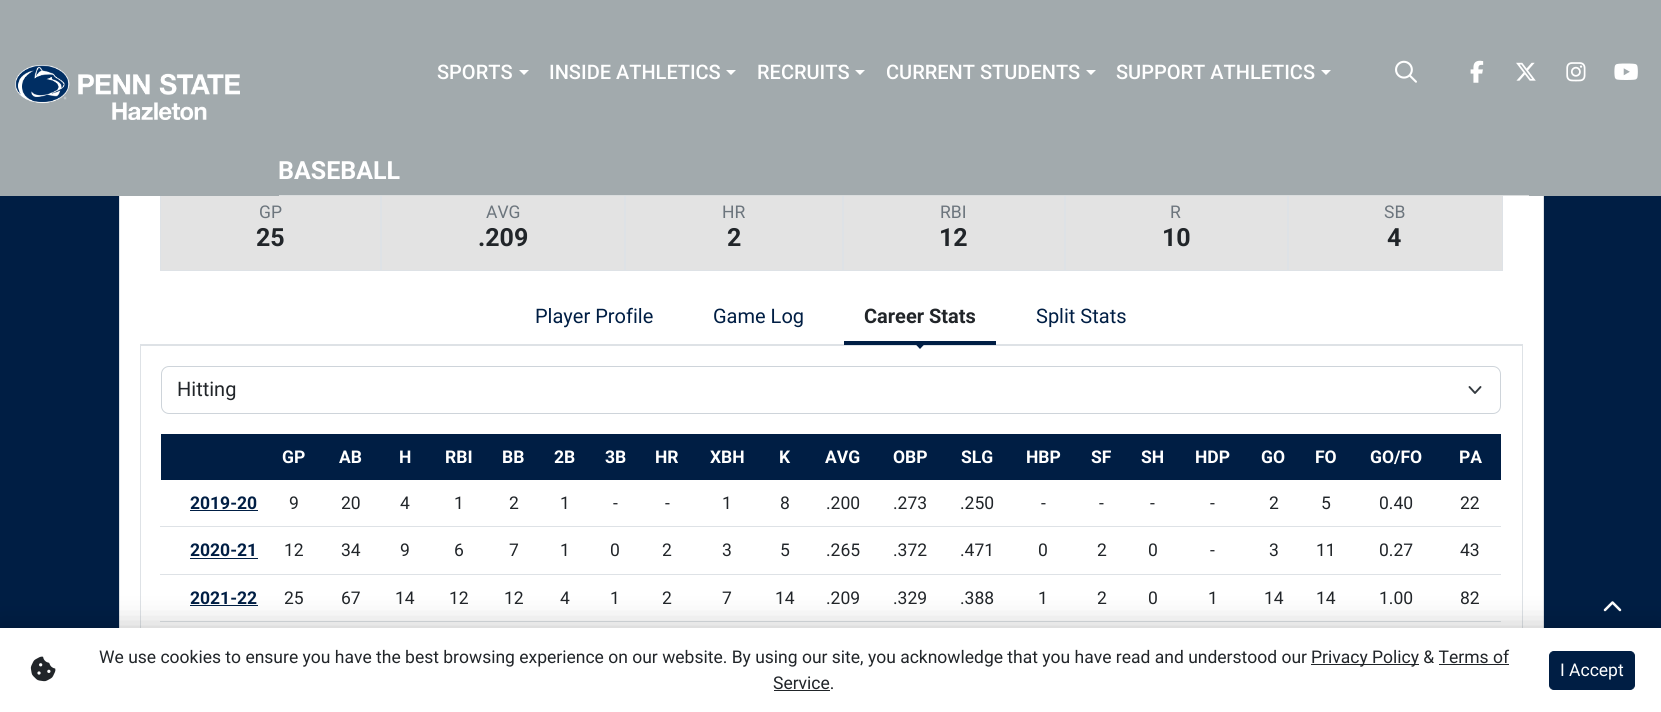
#include <cairo.h>
#include <math.h>
#include <stddef.h>


static void set_color(cairo_t *cr, unsigned color) {
    cairo_set_source_rgb(cr, (color >> 16) / 255.0, (color >> 8 & 255) / 255.0, (color & 255) / 255.0);
}

static void draw_text(cairo_t *cr, double x, double y, const char *s, const char *family, double size, int italic, int bold, unsigned color) {
    cairo_select_font_face(cr, family, italic ? CAIRO_FONT_SLANT_ITALIC : CAIRO_FONT_SLANT_NORMAL,
        bold ? CAIRO_FONT_WEIGHT_BOLD : CAIRO_FONT_WEIGHT_NORMAL);
    cairo_set_font_size(cr, size);
    set_color(cr, color);
    cairo_move_to(cr, x, y);
    cairo_show_text(cr, s);
}

static void fill_rect(cairo_t *cr, double x, double y, double w, double h, unsigned color) {
    set_color(cr, color);
    cairo_rectangle(cr, x, y, w, h);
    cairo_fill(cr);
}

static void rounded_rect(cairo_t *cr, double x, double y, double w, double h, double r) {
    cairo_new_sub_path(cr);
    cairo_arc(cr, x + w - r, y + h - r, r, 0, M_PI / 2);
    cairo_arc(cr, x + r, y + h - r, r, M_PI / 2, M_PI);
    cairo_arc(cr, x + r, y + r, r, M_PI, 1.5 * M_PI);
    cairo_arc(cr, x + w - r, y + r, r, 1.5 * M_PI, 2 * M_PI);
    cairo_close_path(cr);
}

static void draw_shadow(cairo_t *cr, double x, double y, double w, double h, double r, double blur, double alpha) {
    cairo_push_group_with_content(cr, CAIRO_CONTENT_ALPHA);
    cairo_set_operator(cr, CAIRO_OPERATOR_SOURCE);
    for (int i = 15; i >= -15 && fmin(w, h) + blur * i / 3 > 0; i -= 2) {
        double e = blur * i / 6;
        cairo_set_source_rgba(cr, 0, 0, 0, alpha * erfc((i - 1) / 8.5) / 2);
        rounded_rect(cr, x - e, y - e, w + 2 * e, h + 2 * e, fmax(0, fmin(r + e + blur * .6, fmin(w, h) / 2 + e)));
        cairo_fill(cr);
    }
    cairo_pattern_t *soft = cairo_pop_group(cr);
    cairo_mask(cr, soft);
    cairo_pattern_destroy(soft);
}

static void draw_image(cairo_t *cr, const char *path, double x, double y, double w, double h) {
    cairo_surface_t *image = cairo_image_surface_create_from_png(path);
    cairo_save(cr);
    cairo_set_source_surface(cr, image, x, y);
    cairo_rectangle(cr, x, y, w, h);
    cairo_fill(cr);
    cairo_restore(cr);
    cairo_surface_destroy(image);
}

int main(void) {
    cairo_surface_t *surface = cairo_image_surface_create(CAIRO_FORMAT_RGB24, 1661, 712);
    cairo_t *cr = cairo_create(surface);
    cairo_font_options_t *options = cairo_font_options_create();
    cairo_font_options_set_hint_metrics(options, CAIRO_HINT_METRICS_OFF);
    cairo_font_options_set_hint_style(options, CAIRO_HINT_STYLE_NONE);
    cairo_set_font_options(cr, options);
    cairo_set_miter_limit(cr, 4);
    set_color(cr, 0x001E44);
    cairo_paint(cr);
    fill_rect(cr, 120, 196, 1423, 432, 0xFFFFFF);
    cairo_rectangle(cr, 119.5, 36.5, 1424, 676);
    set_color(cr, 0xDEE2E6);
    cairo_set_line_width(cr, 1);
    cairo_stroke(cr);
    fill_rect(cr, 161, 196, 1341, 74, 0xE3E3E3);
    cairo_rectangle(cr, 160.5, 178.5, 220, 92);
    set_color(cr, 0xDEE2E6);
    cairo_stroke(cr);
    cairo_rectangle(cr, 381.5, 178.5, 243, 92);
    cairo_stroke(cr);
    cairo_rectangle(cr, 625.5, 178.5, 217, 92);
    cairo_stroke(cr);
    cairo_rectangle(cr, 843.5, 178.5, 221, 92);
    cairo_stroke(cr);
    cairo_rectangle(cr, 1065.5, 178.5, 222, 92);
    cairo_stroke(cr);
    cairo_rectangle(cr, 1288.5, 178.5, 214, 92);
    cairo_stroke(cr);
    fill_rect(cr, 0, 0, 1661, 196, 0xA2AAAD);
    draw_image(cr, "assets/img1.png", 15, 65, 225, 55);
    draw_text(cr, 437, 79, "SPORTS", "Roboto Medium", 20, 0, 0, 0xFFFFFF);
    cairo_new_path(cr);
    cairo_move_to(cr, 519, 70);
    cairo_line_to(cr, 529, 70);
    cairo_line_to(cr, 524, 75);
    cairo_close_path(cr);
    cairo_fill(cr);
    draw_text(cr, 549, 79, "INSIDE ATHLETICS", "Roboto Medium", 20, 0, 0, 0xFFFFFF);
    cairo_new_path(cr);
    cairo_move_to(cr, 726, 70);
    cairo_line_to(cr, 736, 70);
    cairo_line_to(cr, 731, 75);
    cairo_close_path(cr);
    cairo_fill(cr);
    draw_text(cr, 757, 79, "RECRUITS", "Roboto Medium", 20, 0, 0, 0xFFFFFF);
    cairo_new_path(cr);
    cairo_move_to(cr, 855, 70);
    cairo_line_to(cr, 865, 70);
    cairo_line_to(cr, 860, 75);
    cairo_close_path(cr);
    cairo_fill(cr);
    draw_text(cr, 886, 79, "CURRENT STUDENTS", "Roboto Medium", 20, 0, 0, 0xFFFFFF);
    cairo_new_path(cr);
    cairo_move_to(cr, 1086, 70);
    cairo_line_to(cr, 1096, 70);
    cairo_line_to(cr, 1091, 75);
    cairo_close_path(cr);
    cairo_fill(cr);
    draw_text(cr, 1116, 79, "SUPPORT ATHLETICS", "Roboto Medium", 20, 0, 0, 0xFFFFFF);
    cairo_new_path(cr);
    cairo_move_to(cr, 1321, 70);
    cairo_line_to(cr, 1331, 70);
    cairo_line_to(cr, 1326, 75);
    cairo_close_path(cr);
    cairo_fill(cr);
    draw_image(cr, "assets/img2.png", 1395, 60, 22, 23);
    draw_image(cr, "assets/img3.png", 1470, 60, 14, 23);
    draw_image(cr, "assets/img4.png", 1516, 62, 20, 19);
    draw_image(cr, "assets/img5.png", 1566, 62, 20, 20);
    draw_image(cr, "assets/img6.png", 1614, 63, 24, 17);
    fill_rect(cr, 279, 195, 1250, 1, 0xDADDDE);
    draw_text(cr, 278, 179, "BASEBALL", "Roboto", 25, 0, 1, 0xFFFFFF);
    draw_text(cr, 259, 218, "GP", "Roboto", 17.5, 0, 0, 0x6C757D);
    draw_text(cr, 256, 246, "25", "Roboto", 25, 0, 1, 0x212529);
    draw_text(cr, 486, 218, "AVG", "Roboto", 17.5, 0, 0, 0x6C757D);
    draw_text(cr, 478, 246, ".209", "Roboto", 25, 0, 1, 0x212529);
    draw_text(cr, 722, 218, "HR", "Roboto", 17.5, 0, 0, 0x6C757D);
    draw_text(cr, 727, 246, "2", "Roboto", 25, 0, 1, 0x212529);
    draw_text(cr, 940, 218, "RBI", "Roboto", 17.5, 0, 0, 0x6C757D);
    draw_text(cr, 939, 246, "12", "Roboto", 25, 0, 1, 0x212529);
    draw_text(cr, 1170, 218, "R", "Roboto", 17.5, 0, 0, 0x6C757D);
    draw_text(cr, 1162, 246, "10", "Roboto", 25, 0, 1, 0x212529);
    draw_text(cr, 1384, 218, "SB", "Roboto", 17.5, 0, 0, 0x6C757D);
    draw_text(cr, 1387, 246, "4", "Roboto", 25, 0, 1, 0x212529);
    fill_rect(cr, 140, 344, 1383, 1, 0xDEE2E6);
    draw_text(cr, 535, 323, "Player Profile", "Roboto", 20, 0, 0, 0x001E44);
    draw_text(cr, 713, 323, "Game Log", "Roboto", 20, 0, 0, 0x001E44);
    fill_rect(cr, 844, 341, 152, 4, 0x001E44);
    draw_text(cr, 864, 323, "Career Stats", "Roboto", 20, 0, 1, 0x212529);
    cairo_rectangle(cr, 140.5, 345.5, 1382, 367);
    set_color(cr, 0xDEE2E6);
    cairo_stroke(cr);
    set_color(cr, 0x001E44);
    cairo_new_path(cr);
    cairo_move_to(cr, 912.5, 341);
    cairo_line_to(cr, 927.5, 341);
    cairo_line_to(cr, 920, 349);
    cairo_close_path(cr);
    cairo_fill(cr);
    draw_text(cr, 1036, 323, "Split Stats", "Roboto", 20, 0, 0, 0x001E44);
    cairo_new_path(cr);
    cairo_move_to(cr, 1469.5, 387);
    cairo_line_to(cr, 1475, 393);
    cairo_line_to(cr, 1480.5, 387);
    set_color(cr, 0x343A40);
    cairo_set_line_width(cr, 1.9);
    cairo_set_line_cap(cr, CAIRO_LINE_CAP_ROUND);
    cairo_set_line_join(cr, CAIRO_LINE_JOIN_ROUND);
    cairo_stroke(cr);
    rounded_rect(cr, 161.5, 366.5, 1339, 47, 7.5);
    set_color(cr, 0xCED4DA);
    cairo_set_line_width(cr, 1);
    cairo_set_line_cap(cr, CAIRO_LINE_CAP_BUTT);
    cairo_set_line_join(cr, CAIRO_LINE_JOIN_MITER);
    cairo_stroke(cr);
    draw_text(cr, 177, 396, "Hitting", "Roboto", 20, 0, 0, 0x212529);
    fill_rect(cr, 161, 434, 1340, 46, 0x001E44);
    draw_text(cr, 282, 463, "GP", "Roboto", 17.5, 0, 1, 0xFFFFFF);
    draw_text(cr, 339, 463, "AB", "Roboto", 17.5, 0, 1, 0xFFFFFF);
    draw_text(cr, 399, 463, "H", "Roboto", 17.5, 0, 1, 0xFFFFFF);
    draw_text(cr, 445, 463, "RBI", "Roboto", 17.5, 0, 1, 0xFFFFFF);
    draw_text(cr, 502, 463, "BB", "Roboto", 17.5, 0, 1, 0xFFFFFF);
    draw_text(cr, 554, 463, "2B", "Roboto", 17.5, 0, 1, 0xFFFFFF);
    draw_text(cr, 605, 463, "3B", "Roboto", 17.5, 0, 1, 0xFFFFFF);
    draw_text(cr, 655, 463, "HR", "Roboto", 17.5, 0, 1, 0xFFFFFF);
    draw_text(cr, 710, 463, "XBH", "Roboto", 17.5, 0, 1, 0xFFFFFF);
    draw_text(cr, 779, 463, "K", "Roboto", 17.5, 0, 1, 0xFFFFFF);
    draw_text(cr, 825, 463, "AVG", "Roboto", 17.5, 0, 1, 0xFFFFFF);
    draw_text(cr, 893, 463, "OBP", "Roboto", 17.5, 0, 1, 0xFFFFFF);
    draw_text(cr, 961, 463, "SLG", "Roboto", 17.5, 0, 1, 0xFFFFFF);
    draw_text(cr, 1026, 463, "HBP", "Roboto", 17.5, 0, 1, 0xFFFFFF);
    draw_text(cr, 1091, 463, "SF", "Roboto", 17.5, 0, 1, 0xFFFFFF);
    draw_text(cr, 1141, 463, "SH", "Roboto", 17.5, 0, 1, 0xFFFFFF);
    draw_text(cr, 1195, 463, "HDP", "Roboto", 17.5, 0, 1, 0xFFFFFF);
    draw_text(cr, 1261, 463, "GO", "Roboto", 17.5, 0, 1, 0xFFFFFF);
    draw_text(cr, 1315, 463, "FO", "Roboto", 17.5, 0, 1, 0xFFFFFF);
    draw_text(cr, 1370, 463, "GO/FO", "Roboto", 17.5, 0, 1, 0xFFFFFF);
    draw_text(cr, 1459, 463, "PA", "Roboto", 17.5, 0, 1, 0xFFFFFF);
    draw_text(cr, 190, 509, "2019-20", "Roboto", 17.5, 0, 1, 0x001E44);
    fill_rect(cr, 190, 510, 68, 1, 0x001E44);
    draw_text(cr, 289, 509, "9", "Roboto", 17.5, 0, 0, 0x212529);
    draw_text(cr, 341, 509, "20", "Roboto", 17.5, 0, 0, 0x212529);
    draw_text(cr, 400, 509, "4", "Roboto", 17.5, 0, 0, 0x212529);
    draw_text(cr, 454, 509, "1", "Roboto", 17.5, 0, 0, 0x212529);
    draw_text(cr, 509, 509, "2", "Roboto", 17.5, 0, 0, 0x212529);
    draw_text(cr, 560, 509, "1", "Roboto", 17.5, 0, 0, 0x212529);
    draw_text(cr, 613, 509, "-", "Roboto", 17.5, 0, 0, 0x212529);
    draw_text(cr, 665, 509, "-", "Roboto", 17.5, 0, 0, 0x212529);
    draw_text(cr, 722, 509, "1", "Roboto", 17.5, 0, 0, 0x212529);
    draw_text(cr, 780, 509, "8", "Roboto", 17.5, 0, 0, 0x212529);
    draw_text(cr, 826, 509, ".200", "Roboto", 17.5, 0, 0, 0x212529);
    draw_text(cr, 893, 509, ".273", "Roboto", 17.5, 0, 0, 0x212529);
    draw_text(cr, 960, 509, ".250", "Roboto", 17.5, 0, 0, 0x212529);
    draw_text(cr, 1041, 509, "-", "Roboto", 17.5, 0, 0, 0x212529);
    draw_text(cr, 1099, 509, "-", "Roboto", 17.5, 0, 0, 0x212529);
    draw_text(cr, 1150, 509, "-", "Roboto", 17.5, 0, 0, 0x212529);
    draw_text(cr, 1210, 509, "-", "Roboto", 17.5, 0, 0, 0x212529);
    draw_text(cr, 1269, 509, "2", "Roboto", 17.5, 0, 0, 0x212529);
    draw_text(cr, 1321, 509, "5", "Roboto", 17.5, 0, 0, 0x212529);
    draw_text(cr, 1379, 509, "0.40", "Roboto", 17.5, 0, 0, 0x212529);
    fill_rect(cr, 160, 526, 1341, 1, 0xDEE2E6);
    draw_text(cr, 1460, 509, "22", "Roboto", 17.5, 0, 0, 0x212529);
    draw_text(cr, 190, 556, "2020-21", "Roboto", 17.5, 0, 1, 0x001E44);
    fill_rect(cr, 190, 558, 68, 1, 0x001E44);
    draw_text(cr, 284, 556, "12", "Roboto", 17.5, 0, 0, 0x212529);
    draw_text(cr, 341, 556, "34", "Roboto", 17.5, 0, 0, 0x212529);
    draw_text(cr, 400, 556, "9", "Roboto", 17.5, 0, 0, 0x212529);
    draw_text(cr, 454, 556, "6", "Roboto", 17.5, 0, 0, 0x212529);
    draw_text(cr, 509, 556, "7", "Roboto", 17.5, 0, 0, 0x212529);
    draw_text(cr, 560, 556, "1", "Roboto", 17.5, 0, 0, 0x212529);
    draw_text(cr, 610, 556, "0", "Roboto", 17.5, 0, 0, 0x212529);
    draw_text(cr, 662, 556, "2", "Roboto", 17.5, 0, 0, 0x212529);
    draw_text(cr, 722, 556, "3", "Roboto", 17.5, 0, 0, 0x212529);
    draw_text(cr, 780, 556, "5", "Roboto", 17.5, 0, 0, 0x212529);
    draw_text(cr, 826, 556, ".265", "Roboto", 17.5, 0, 0, 0x212529);
    draw_text(cr, 893, 556, ".372", "Roboto", 17.5, 0, 0, 0x212529);
    draw_text(cr, 960, 556, ".471", "Roboto", 17.5, 0, 0, 0x212529);
    draw_text(cr, 1038, 556, "0", "Roboto", 17.5, 0, 0, 0x212529);
    draw_text(cr, 1097, 556, "2", "Roboto", 17.5, 0, 0, 0x212529);
    draw_text(cr, 1148, 556, "0", "Roboto", 17.5, 0, 0, 0x212529);
    draw_text(cr, 1210, 556, "-", "Roboto", 17.5, 0, 0, 0x212529);
    draw_text(cr, 1269, 556, "3", "Roboto", 17.5, 0, 0, 0x212529);
    draw_text(cr, 1316, 556, "11", "Roboto", 17.5, 0, 0, 0x212529);
    draw_text(cr, 1379, 556, "0.27", "Roboto", 17.5, 0, 0, 0x212529);
    fill_rect(cr, 160, 574, 1341, 1, 0xDEE2E6);
    draw_text(cr, 1460, 556, "43", "Roboto", 17.5, 0, 0, 0x212529);
    draw_text(cr, 190, 604, "2021-22", "Roboto", 17.5, 0, 1, 0x001E44);
    fill_rect(cr, 190, 605, 68, 1, 0x001E44);
    draw_text(cr, 284, 604, "25", "Roboto", 17.5, 0, 0, 0x212529);
    draw_text(cr, 341, 604, "67", "Roboto", 17.5, 0, 0, 0x212529);
    draw_text(cr, 395, 604, "14", "Roboto", 17.5, 0, 0, 0x212529);
    draw_text(cr, 449, 604, "12", "Roboto", 17.5, 0, 0, 0x212529);
    draw_text(cr, 504, 604, "12", "Roboto", 17.5, 0, 0, 0x212529);
    draw_text(cr, 560, 604, "4", "Roboto", 17.5, 0, 0, 0x212529);
    draw_text(cr, 610, 604, "1", "Roboto", 17.5, 0, 0, 0x212529);
    draw_text(cr, 662, 604, "2", "Roboto", 17.5, 0, 0, 0x212529);
    draw_text(cr, 722, 604, "7", "Roboto", 17.5, 0, 0, 0x212529);
    draw_text(cr, 775, 604, "14", "Roboto", 17.5, 0, 0, 0x212529);
    draw_text(cr, 826, 604, ".209", "Roboto", 17.5, 0, 0, 0x212529);
    draw_text(cr, 893, 604, ".329", "Roboto", 17.5, 0, 0, 0x212529);
    draw_text(cr, 960, 604, ".388", "Roboto", 17.5, 0, 0, 0x212529);
    draw_text(cr, 1038, 604, "1", "Roboto", 17.5, 0, 0, 0x212529);
    draw_text(cr, 1097, 604, "2", "Roboto", 17.5, 0, 0, 0x212529);
    draw_text(cr, 1148, 604, "0", "Roboto", 17.5, 0, 0, 0x212529);
    draw_text(cr, 1208, 604, "1", "Roboto", 17.5, 0, 0, 0x212529);
    draw_text(cr, 1264, 604, "14", "Roboto", 17.5, 0, 0, 0x212529);
    draw_text(cr, 1316, 604, "14", "Roboto", 17.5, 0, 0, 0x212529);
    draw_text(cr, 1379, 604, "1.00", "Roboto", 17.5, 0, 0, 0x212529);
    fill_rect(cr, 160, 621, 1341, 1, 0xDEE2E6);
    draw_text(cr, 1460, 604, "82", "Roboto", 17.5, 0, 0, 0x212529);
    draw_image(cr, "assets/img7.png", 1603, 601, 19, 11);
    set_color(cr, 0x000000);
    draw_shadow(cr, 0, 628, 1661, 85, 0, 15, 0.25);
    fill_rect(cr, 0, 628, 1661, 84, 0xFFFFFF);
    draw_image(cr, "assets/img8.png", 30, 656, 26, 26);
    draw_text(cr, 99, 663, "We use cookies to ensure you have the best browsing experience on our website. By using our site, you acknowledge that you have read and understood our", "Roboto", 17.5, 0, 0, 0x212529);
    fill_rect(cr, 1311, 664, 108, 1, 0x212529);
    draw_text(cr, 1311, 663, "Privacy Policy & Terms of", "Roboto", 17.5, 0, 0, 0x212529);
    draw_text(cr, 773, 689, "Service.", "Roboto", 17.5, 0, 0, 0x212529);
    fill_rect(cr, 1439, 664, 70, 1, 0x212529);
    fill_rect(cr, 774, 690, 56, 1, 0x212529);
    set_color(cr, 0x001E44);
    rounded_rect(cr, 1549.5, 651.5, 85, 38, 4.5);
    cairo_fill_preserve(cr);
    cairo_stroke(cr);
    draw_text(cr, 1560, 676, "I Accept", "Roboto", 17.5, 0, 0, 0xFFFFFF);
    cairo_surface_write_to_png(surface, "output.png");
    cairo_font_options_destroy(options);
    cairo_destroy(cr);
    cairo_surface_destroy(surface);
    return 0;
}
